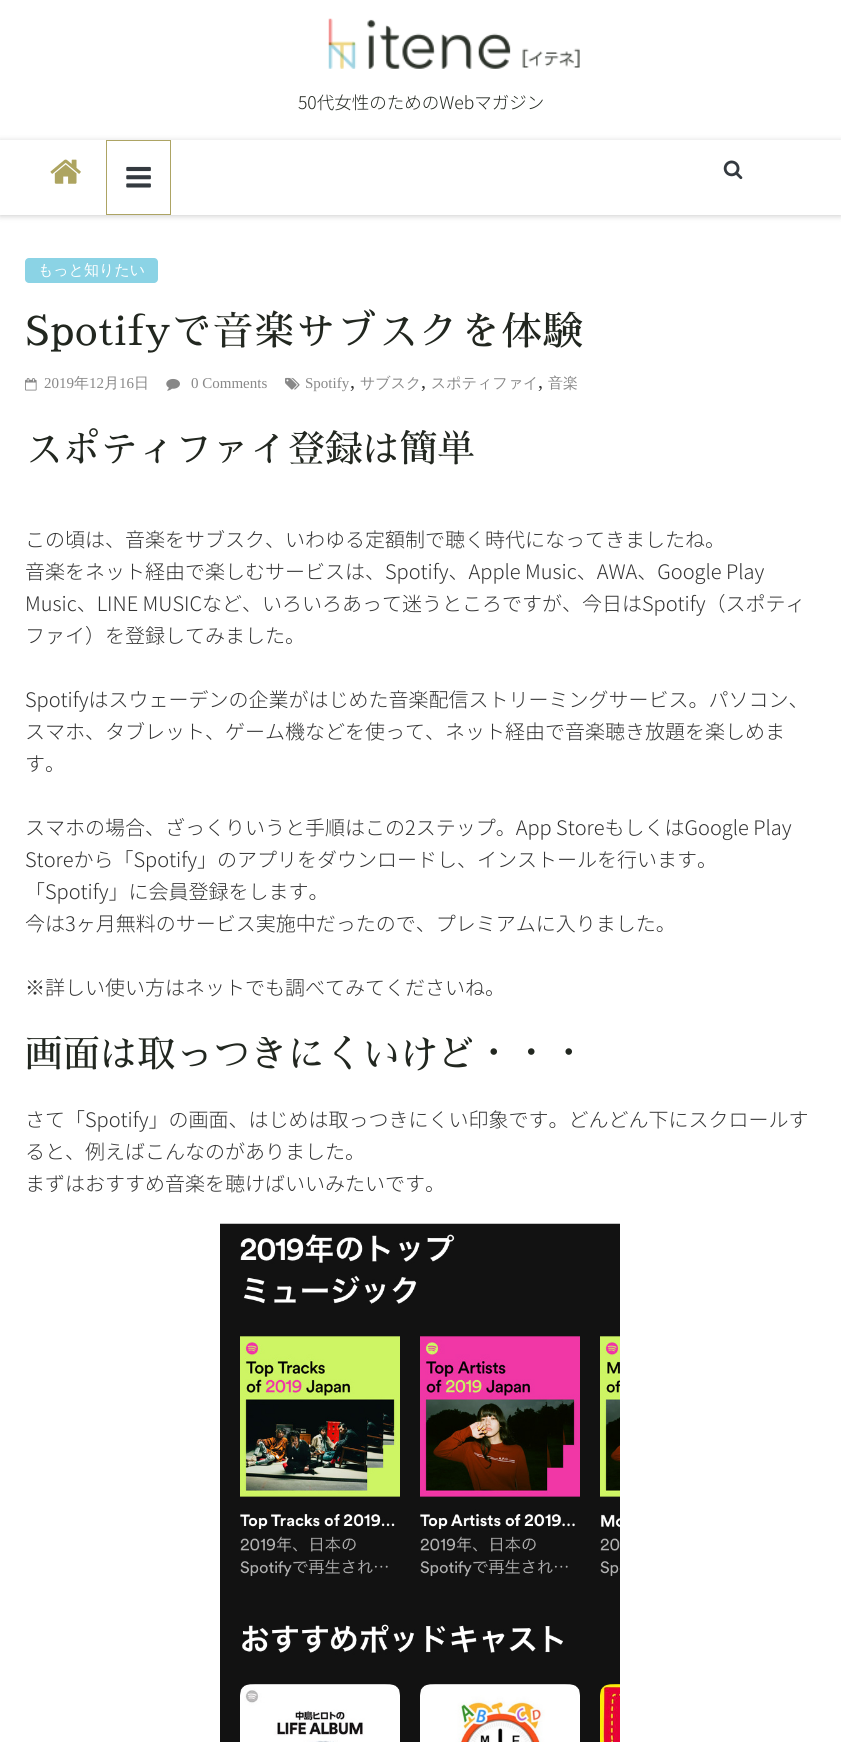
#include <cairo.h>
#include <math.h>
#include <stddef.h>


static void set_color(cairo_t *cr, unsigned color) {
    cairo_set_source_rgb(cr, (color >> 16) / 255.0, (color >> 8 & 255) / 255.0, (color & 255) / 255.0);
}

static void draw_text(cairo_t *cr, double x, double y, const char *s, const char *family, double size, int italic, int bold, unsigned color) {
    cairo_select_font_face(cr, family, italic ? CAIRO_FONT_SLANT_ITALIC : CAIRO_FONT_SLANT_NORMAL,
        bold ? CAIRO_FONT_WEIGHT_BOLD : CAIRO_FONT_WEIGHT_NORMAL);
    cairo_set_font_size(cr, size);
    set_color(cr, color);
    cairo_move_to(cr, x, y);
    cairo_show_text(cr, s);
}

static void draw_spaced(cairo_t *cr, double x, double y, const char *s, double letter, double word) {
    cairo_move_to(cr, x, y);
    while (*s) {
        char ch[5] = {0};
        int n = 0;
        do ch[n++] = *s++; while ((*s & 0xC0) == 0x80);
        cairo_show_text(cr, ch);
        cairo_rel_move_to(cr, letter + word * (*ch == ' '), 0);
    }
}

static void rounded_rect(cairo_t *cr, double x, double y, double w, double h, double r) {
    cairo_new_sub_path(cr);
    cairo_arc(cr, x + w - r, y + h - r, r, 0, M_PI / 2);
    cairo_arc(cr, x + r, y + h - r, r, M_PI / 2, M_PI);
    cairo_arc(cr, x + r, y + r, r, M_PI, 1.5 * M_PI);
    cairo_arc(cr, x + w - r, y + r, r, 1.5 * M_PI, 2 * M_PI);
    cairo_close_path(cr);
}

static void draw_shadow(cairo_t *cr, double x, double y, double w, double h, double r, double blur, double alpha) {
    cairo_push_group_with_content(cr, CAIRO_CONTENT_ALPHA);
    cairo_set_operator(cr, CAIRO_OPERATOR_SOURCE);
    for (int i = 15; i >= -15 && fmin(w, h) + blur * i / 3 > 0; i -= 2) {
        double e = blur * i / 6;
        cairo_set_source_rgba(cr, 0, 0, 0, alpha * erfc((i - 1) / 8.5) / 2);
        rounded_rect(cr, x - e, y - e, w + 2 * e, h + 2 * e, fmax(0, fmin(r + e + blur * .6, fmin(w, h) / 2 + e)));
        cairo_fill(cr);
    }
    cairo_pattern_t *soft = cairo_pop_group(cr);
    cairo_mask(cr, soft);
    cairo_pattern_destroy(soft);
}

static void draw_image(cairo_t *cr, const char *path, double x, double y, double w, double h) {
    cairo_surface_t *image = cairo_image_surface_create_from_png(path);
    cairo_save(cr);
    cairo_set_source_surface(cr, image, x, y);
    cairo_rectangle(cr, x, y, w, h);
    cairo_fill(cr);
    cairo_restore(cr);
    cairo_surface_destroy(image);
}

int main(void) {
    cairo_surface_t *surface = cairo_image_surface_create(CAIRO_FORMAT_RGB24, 841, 1742);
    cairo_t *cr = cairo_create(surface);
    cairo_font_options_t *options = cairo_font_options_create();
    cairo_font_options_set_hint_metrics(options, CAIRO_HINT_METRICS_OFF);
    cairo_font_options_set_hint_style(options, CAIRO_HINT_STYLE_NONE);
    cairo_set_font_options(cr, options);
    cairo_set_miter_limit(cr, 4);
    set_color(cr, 0xFFFFFF);
    cairo_paint(cr);
    draw_image(cr, "assets/img1.png", 328, 18, 252, 51);
    draw_text(cr, 298, 109, "50代女性のためのWebマガジン", "Noto Sans JP Thin", 17.5, 0, 0, 0x222720);
    cairo_save(cr);
    cairo_set_fill_rule(cr, CAIRO_FILL_RULE_EVEN_ODD);
    cairo_new_path(cr);
    cairo_move_to(cr, 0, 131);
    cairo_line_to(cr, 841, 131);
    cairo_line_to(cr, 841, 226);
    cairo_line_to(cr, 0, 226);
    cairo_close_path(cr);
    cairo_move_to(cr, 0, 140);
    cairo_line_to(cr, 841, 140);
    cairo_line_to(cr, 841, 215);
    cairo_line_to(cr, 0, 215);
    cairo_close_path(cr);
    cairo_clip(cr);
    set_color(cr, 0x000000);
    draw_shadow(cr, 0, 141, 841, 75, 0, 3, 0.2);
    cairo_restore(cr);
    draw_image(cr, "assets/img2.png", 50, 159, 31, 25);
    cairo_rectangle(cr, 106.5, 140.5, 64, 74);
    set_color(cr, 0xADA464);
    cairo_set_line_width(cr, 1);
    cairo_stroke(cr);
    draw_image(cr, "assets/img3.png", 126, 166, 25, 22);
    draw_image(cr, "assets/img4.png", 723, 160, 20, 20);
    set_color(cr, 0x8BD3E5);
    rounded_rect(cr, 25, 258, 133, 25, 4);
    cairo_fill(cr);
    draw_text(cr, 38, 275, "もっと知りたい", "WenQuanYi Zen Hei Medium", 15, 0, 0, 0xFFFFFF);
    cairo_select_font_face(cr, "Sawarabi Mincho", CAIRO_FONT_SLANT_NORMAL, CAIRO_FONT_WEIGHT_NORMAL);
    cairo_set_font_size(cr, 40);
    set_color(cr, 0x222720);
    draw_spaced(cr, 25, 345, "Spotifyで音楽サブスクを体験", 1.25, 0);
    draw_image(cr, "assets/img5.png", 25, 378, 12, 13);
    draw_text(cr, 44, 388, "2019", "Liberation Serif", 15, 0, 0, 0x888888);
    draw_text(cr, 74, 388, "年", "WenQuanYi Zen Hei Medium", 15, 0, 0, 0x888888);
    draw_text(cr, 89, 388, "12", "Liberation Serif", 15, 0, 0, 0x888888);
    draw_text(cr, 104, 388, "月", "WenQuanYi Zen Hei Medium", 15, 0, 0, 0x888888);
    draw_text(cr, 119, 388, "16", "Liberation Serif", 15, 0, 0, 0x888888);
    draw_text(cr, 134, 388, "日", "WenQuanYi Zen Hei Medium", 15, 0, 0, 0x888888);
    draw_image(cr, "assets/img6.png", 166, 378, 14, 13);
    draw_text(cr, 191, 388, "0 Comments", "Liberation Serif", 15, 0, 0, 0x888888);
    draw_image(cr, "assets/img7.png", 285, 377, 15, 13);
    draw_text(cr, 305, 388, "Spotify", "Liberation Serif", 15, 0, 0, 0x888888);
    draw_text(cr, 350, 388, ",", "Liberation Serif", 20, 0, 0, 0x333333);
    draw_text(cr, 360, 388, "サブスク", "WenQuanYi Zen Hei Medium", 15, 0, 0, 0x888888);
    draw_text(cr, 421, 388, ",", "Liberation Serif", 20, 0, 0, 0x333333);
    draw_text(cr, 431, 388, "スポティファイ", "WenQuanYi Zen Hei Medium", 15, 0, 0, 0x888888);
    draw_text(cr, 538, 388, ",", "Liberation Serif", 20, 0, 0, 0x333333);
    draw_text(cr, 548, 388, "音楽", "WenQuanYi Zen Hei Medium", 15, 0, 0, 0x888888);
    draw_text(cr, 25, 462, "スポティファイ登録は簡単", "Sawarabi Mincho", 37.5, 0, 0, 0x222720);
    draw_text(cr, 25, 547, "この頃は、音楽をサブスク、いわゆる定額制で聴く時代になってきましたね。", "Noto Sans JP Thin", 20, 0, 0, 0x333333);
    draw_text(cr, 25, 579, "音楽をネット経由で楽しむサービスは、Spotify、Apple Music、AWA、Google Play", "Noto Sans JP Thin", 20, 0, 0, 0x333333);
    draw_text(cr, 25, 611, "Music、LINE MUSICなど、いろいろあって迷うところですが、今日はSpotify（スポティ", "Noto Sans JP Thin", 20, 0, 0, 0x333333);
    draw_text(cr, 25, 643, "ファイ）を登録してみました。", "Noto Sans JP Thin", 20, 0, 0, 0x333333);
    draw_text(cr, 25, 707, "Spotifyはスウェーデンの企業がはじめた音楽配信ストリーミングサービス。パソコン、", "Noto Sans JP Thin", 20, 0, 0, 0x333333);
    draw_text(cr, 25, 739, "スマホ、タブレット、ゲーム機などを使って、ネット経由で音楽聴き放題を楽しめま", "Noto Sans JP Thin", 20, 0, 0, 0x333333);
    draw_text(cr, 25, 771, "す。", "Noto Sans JP Thin", 20, 0, 0, 0x333333);
    draw_text(cr, 25, 835, "スマホの場合、ざっくりいうと手順はこの2ステップ。App StoreもしくはGoogle Play", "Noto Sans JP Thin", 20, 0, 0, 0x333333);
    draw_text(cr, 25, 867, "Storeから「Spotify」のアプリをダウンロードし、インストールを行います。", "Noto Sans JP Thin", 20, 0, 0, 0x333333);
    draw_text(cr, 25, 899, "「Spotify」に会員登録をします。", "Noto Sans JP Thin", 20, 0, 0, 0x333333);
    draw_text(cr, 25, 931, "今は3ヶ月無料のサービス実施中だったので、プレミアムに入りました。", "Noto Sans JP Thin", 20, 0, 0, 0x333333);
    draw_text(cr, 25, 995, "※詳しい使い方はネットでも調べてみてくださいね。", "Noto Sans JP Thin", 20, 0, 0, 0x333333);
    draw_text(cr, 25, 1067, "画面は取っつきにくいけど・・・", "Sawarabi Mincho", 37.5, 0, 0, 0x222720);
    draw_text(cr, 25, 1127, "さて「Spotify」の画面、はじめは取っつきにくい印象です。どんどん下にスクロールす", "Noto Sans JP Thin", 20, 0, 0, 0x333333);
    draw_text(cr, 25, 1159, "ると、例えばこんなのがありました。", "Noto Sans JP Thin", 20, 0, 0, 0x333333);
    draw_text(cr, 25, 1191, "まずはおすすめ音楽を聴けばいいみたいです。", "Noto Sans JP Thin", 20, 0, 0, 0x333333);
    draw_image(cr, "assets/img8.png", 220, 1223, 400, 519);
    cairo_surface_write_to_png(surface, "output.png");
    cairo_font_options_destroy(options);
    cairo_destroy(cr);
    cairo_surface_destroy(surface);
    return 0;
}
